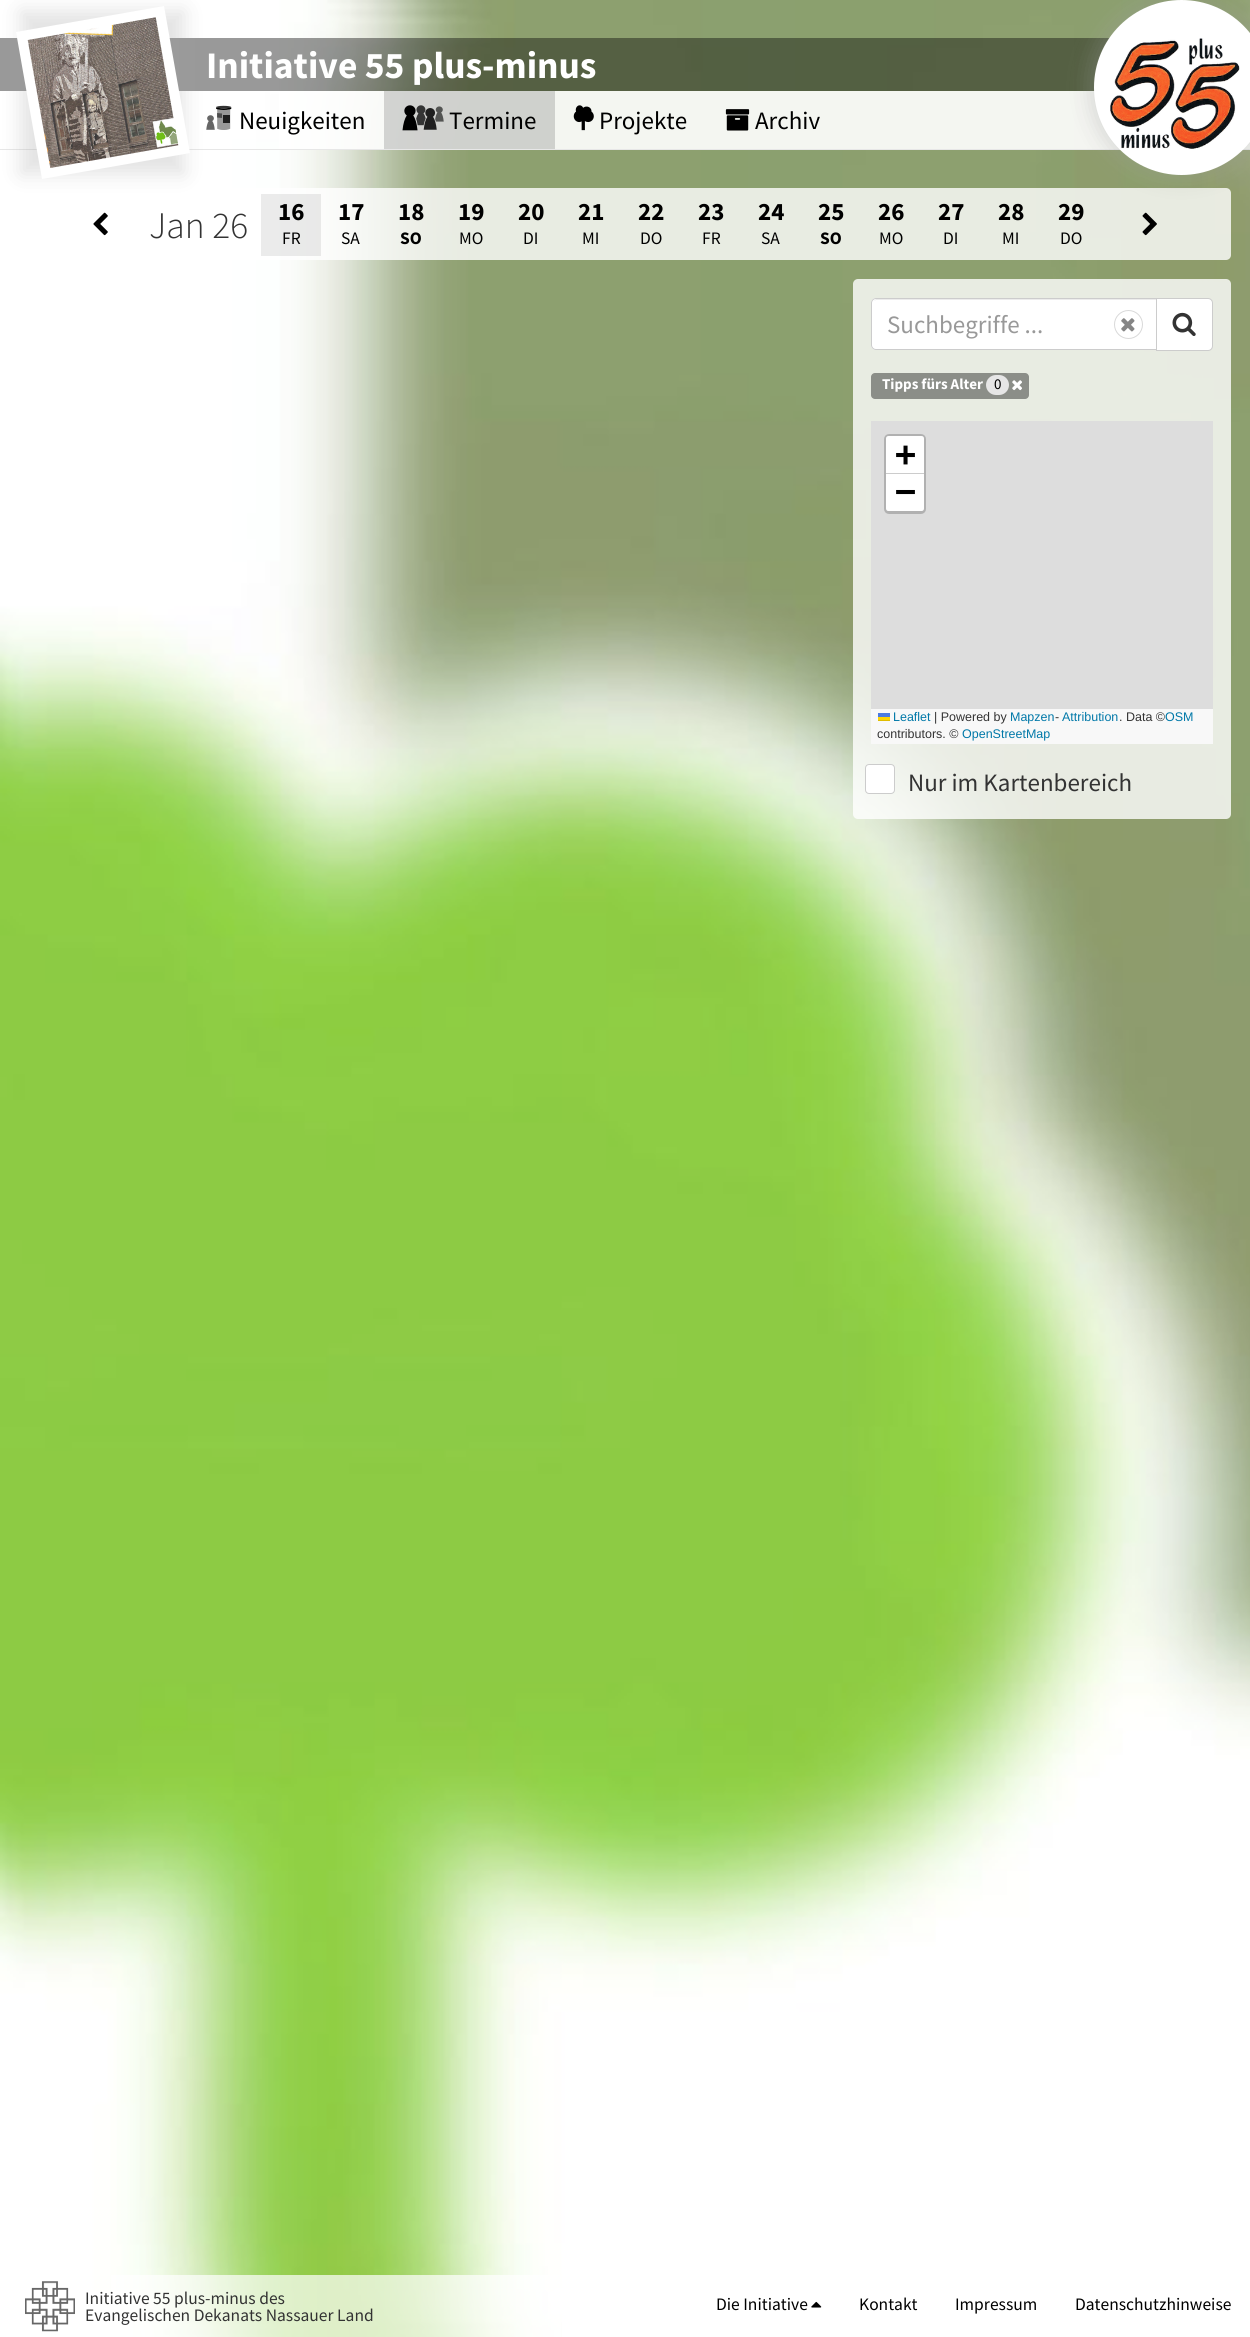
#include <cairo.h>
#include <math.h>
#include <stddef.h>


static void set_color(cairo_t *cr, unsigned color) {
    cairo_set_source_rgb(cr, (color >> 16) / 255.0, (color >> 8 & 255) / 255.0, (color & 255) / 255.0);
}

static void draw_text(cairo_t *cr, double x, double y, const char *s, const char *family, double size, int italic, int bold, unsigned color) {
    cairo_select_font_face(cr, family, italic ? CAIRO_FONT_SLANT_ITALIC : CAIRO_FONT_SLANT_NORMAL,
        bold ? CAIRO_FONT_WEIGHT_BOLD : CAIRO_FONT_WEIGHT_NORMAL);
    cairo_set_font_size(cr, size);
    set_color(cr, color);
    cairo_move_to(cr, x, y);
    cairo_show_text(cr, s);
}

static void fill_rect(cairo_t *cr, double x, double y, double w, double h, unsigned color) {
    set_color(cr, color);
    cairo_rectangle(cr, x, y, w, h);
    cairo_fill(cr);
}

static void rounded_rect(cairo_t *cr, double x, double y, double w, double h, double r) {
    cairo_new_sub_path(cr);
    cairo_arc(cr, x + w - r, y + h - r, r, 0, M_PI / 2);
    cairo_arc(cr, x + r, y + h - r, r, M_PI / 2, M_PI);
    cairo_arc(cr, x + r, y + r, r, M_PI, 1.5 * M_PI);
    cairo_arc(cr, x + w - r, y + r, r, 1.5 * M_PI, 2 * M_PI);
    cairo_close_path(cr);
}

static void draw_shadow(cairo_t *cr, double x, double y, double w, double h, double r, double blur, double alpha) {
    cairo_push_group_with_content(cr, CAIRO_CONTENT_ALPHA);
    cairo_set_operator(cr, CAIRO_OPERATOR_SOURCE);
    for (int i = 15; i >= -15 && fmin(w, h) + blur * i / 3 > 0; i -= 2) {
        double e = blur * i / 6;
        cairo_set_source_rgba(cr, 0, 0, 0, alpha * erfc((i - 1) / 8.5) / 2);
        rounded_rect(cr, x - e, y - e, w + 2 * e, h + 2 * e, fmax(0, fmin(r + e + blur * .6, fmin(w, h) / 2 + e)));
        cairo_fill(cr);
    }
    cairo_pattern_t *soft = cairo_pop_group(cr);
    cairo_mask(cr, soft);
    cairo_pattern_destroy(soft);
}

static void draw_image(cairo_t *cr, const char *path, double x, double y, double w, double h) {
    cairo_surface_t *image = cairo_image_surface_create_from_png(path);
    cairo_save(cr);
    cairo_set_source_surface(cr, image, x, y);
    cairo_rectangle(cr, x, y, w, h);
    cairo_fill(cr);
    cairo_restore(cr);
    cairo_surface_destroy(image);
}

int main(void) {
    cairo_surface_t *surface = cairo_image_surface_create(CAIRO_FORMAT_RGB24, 1250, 2337);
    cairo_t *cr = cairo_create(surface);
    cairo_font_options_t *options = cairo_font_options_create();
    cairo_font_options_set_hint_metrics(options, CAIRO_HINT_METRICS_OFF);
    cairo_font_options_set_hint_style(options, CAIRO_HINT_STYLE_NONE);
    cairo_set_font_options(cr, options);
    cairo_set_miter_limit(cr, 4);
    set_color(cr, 0xFFFFFF);
    cairo_paint(cr);
    draw_image(cr, "assets/img1.png", 0, 0, 1250, 2337);
    fill_rect(cr, 0, 149, 1250, 1, 0xE7E7E7);
    cairo_set_source_rgba(cr, 0, 0, 0, 0.4);
    cairo_rectangle(cr, 0, 38, 1110, 53);
    cairo_fill(cr);
    draw_image(cr, "assets/img7.png", 206, 115, 9, 15);
    cairo_set_source_rgba(cr, 1, 1, 1, 0.8);
    rounded_rect(cr, 19, 188, 1212, 72, 5);
    cairo_fill(cr);
    set_color(cr, 0xA0A0A0);
    draw_shadow(cr, 21, 11, 163, 163, 0, 10, 0.3);
    set_color(cr, 0xFFFFFF);
    cairo_new_path(cr);
    cairo_move_to(cr, 16, 32);
    cairo_line_to(cr, 164, 6);
    cairo_line_to(cr, 190, 153);
    cairo_line_to(cr, 42, 179);
    cairo_close_path(cr);
    cairo_fill(cr);
    draw_image(cr, "assets/img2.png", 27, 17, 152, 151);
    draw_text(cr, 206, 78, "Initiative 55 plus-minus", "Source Sans Pro", 37.5, 0, 1, 0xFFFFFF);
    cairo_set_source_rgba(cr, 1, 1, 1, 0.9);
    cairo_rectangle(cr, 279, 91, 971, 58);
    cairo_fill(cr);
    set_color(cr, 0xA0A0A0);
    draw_shadow(cr, 1088, -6, 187, 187, 93.5, 10, 0.3);
    set_color(cr, 0xFFFFFF);
    cairo_arc(cr, 1181.5, 87.5, 87.5, 0, 2 * M_PI);
    cairo_fill(cr);
    draw_image(cr, "assets/img3.png", 1110, 38, 130, 111);
    draw_image(cr, "assets/img5.png", 216, 107, 16, 3);
    draw_image(cr, "assets/img4.png", 216, 105, 16, 4);
    draw_image(cr, "assets/img6.png", 217, 109, 14, 21);
    cairo_set_source_rgba(cr, 0, 0, 0, 0.5);
    cairo_new_path(cr);
    cairo_move_to(cr, 222, 113.5);
    cairo_line_to(cr, 217, 113);
    cairo_line_to(cr, 217, 117.5);
    cairo_line_to(cr, 222, 118);
    cairo_close_path(cr);
    cairo_fill(cr);
    fill_rect(cr, 223, 115, 7, 8, 0x1F1F1F);
    draw_text(cr, 239, 129, "Neuigkeiten", "Source Sans Pro", 25, 0, 0, 0x000000);
    cairo_set_source_rgba(cr, 0.471, 0.471, 0.471, 0.3);
    cairo_rectangle(cr, 384, 91, 171, 58);
    cairo_fill(cr);
    draw_image(cr, "assets/img8.png", 402, 105, 16, 26);
    draw_image(cr, "assets/img9.png", 416, 105, 10, 21);
    draw_image(cr, "assets/img10.png", 423, 108, 14, 22);
    draw_image(cr, "assets/img11.png", 435, 106, 9, 16);
    draw_text(cr, 449, 129, "Termine", "Source Sans Pro", 25, 0, 0, 0x000000);
    draw_image(cr, "assets/img12.png", 573, 105, 21, 26);
    draw_text(cr, 599, 129, "Projekte", "Source Sans Pro", 25, 0, 0, 0x000000);
    draw_image(cr, "assets/img13.png", 725, 109, 25, 22);
    draw_text(cr, 755, 129, "Archiv", "Source Sans Pro", 25, 0, 0, 0x000000);
    draw_image(cr, "assets/img14.png", 93, 212, 15, 24);
    draw_text(cr, 149, 238, "Jan 26", "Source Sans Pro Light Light", 37.5, 0, 0, 0x333333);
    cairo_set_source_rgba(cr, 0.608, 0.608, 0.608, 0.2);
    cairo_rectangle(cr, 261, 194, 60, 62);
    cairo_fill(cr);
    draw_text(cr, 278, 220, "16", "Source Sans Pro", 25, 0, 1, 0x000000);
    draw_text(cr, 282, 244, "FR", "Source Sans Pro", 17.5, 0, 0, 0x000000);
    draw_text(cr, 338, 220, "17", "Source Sans Pro", 25, 0, 1, 0x000000);
    draw_text(cr, 341, 244, "SA", "Source Sans Pro", 17.5, 0, 0, 0x000000);
    draw_text(cr, 398, 220, "18", "Source Sans Pro", 25, 0, 1, 0x000000);
    draw_text(cr, 400, 244, "SO", "Source Sans Pro", 17.5, 0, 1, 0x000000);
    draw_text(cr, 458, 220, "19", "Source Sans Pro", 25, 0, 1, 0x000000);
    draw_text(cr, 459, 244, "MO", "Source Sans Pro", 17.5, 0, 0, 0x000000);
    draw_text(cr, 518, 220, "20", "Source Sans Pro", 25, 0, 1, 0x000000);
    draw_text(cr, 523, 244, "DI", "Source Sans Pro", 17.5, 0, 0, 0x000000);
    draw_text(cr, 578, 220, "21", "Source Sans Pro", 25, 0, 1, 0x000000);
    draw_text(cr, 582, 244, "MI", "Source Sans Pro", 17.5, 0, 0, 0x000000);
    draw_text(cr, 638, 220, "22", "Source Sans Pro", 25, 0, 1, 0x000000);
    draw_text(cr, 640, 244, "DO", "Source Sans Pro", 17.5, 0, 0, 0x000000);
    draw_text(cr, 698, 220, "23", "Source Sans Pro", 25, 0, 1, 0x000000);
    draw_text(cr, 702, 244, "FR", "Source Sans Pro", 17.5, 0, 0, 0x000000);
    draw_text(cr, 758, 220, "24", "Source Sans Pro", 25, 0, 1, 0x000000);
    draw_text(cr, 761, 244, "SA", "Source Sans Pro", 17.5, 0, 0, 0x000000);
    draw_text(cr, 818, 220, "25", "Source Sans Pro", 25, 0, 1, 0x000000);
    draw_text(cr, 820, 244, "SO", "Source Sans Pro", 17.5, 0, 1, 0x000000);
    draw_text(cr, 878, 220, "26", "Source Sans Pro", 25, 0, 1, 0x000000);
    draw_text(cr, 879, 244, "MO", "Source Sans Pro", 17.5, 0, 0, 0x000000);
    draw_text(cr, 938, 220, "27", "Source Sans Pro", 25, 0, 1, 0x000000);
    draw_text(cr, 943, 244, "DI", "Source Sans Pro", 17.5, 0, 0, 0x000000);
    draw_text(cr, 998, 220, "28", "Source Sans Pro", 25, 0, 1, 0x000000);
    draw_text(cr, 1002, 244, "MI", "Source Sans Pro", 17.5, 0, 0, 0x000000);
    draw_text(cr, 1058, 220, "29", "Source Sans Pro", 25, 0, 1, 0x000000);
    draw_text(cr, 1060, 244, "DO", "Source Sans Pro", 17.5, 0, 0, 0x000000);
    draw_image(cr, "assets/img15.png", 1142, 212, 15, 24);
    cairo_set_source_rgba(cr, 1, 1, 1, 0.8);
    rounded_rect(cr, 853, 279, 378, 540, 5);
    cairo_fill(cr);
    set_color(cr, 0xFFFFFF);
    cairo_new_path(cr);
    cairo_move_to(cr, 876, 298);
    cairo_line_to(cr, 1158, 298);
    cairo_line_to(cr, 1158, 350);
    cairo_line_to(cr, 876, 350);
    cairo_curve_to(cr, 873, 350, 871, 348, 871, 345);
    cairo_line_to(cr, 871, 303);
    cairo_curve_to(cr, 871, 300, 873, 298, 876, 298);
    cairo_close_path(cr);
    cairo_fill(cr);
    set_color(cr, 0xECECEC);
    cairo_new_path(cr);
    cairo_move_to(cr, 876, 300);
    cairo_line_to(cr, 1156, 300);
    cairo_line_to(cr, 1156, 299);
    cairo_line_to(cr, 876, 299);
    cairo_line_to(cr, 874, 301);
    cairo_close_path(cr);
    cairo_fill(cr);
    cairo_new_path(cr);
    cairo_move_to(cr, 876, 298.5);
    cairo_line_to(cr, 1157.5, 298.5);
    cairo_line_to(cr, 1157.5, 349.5);
    cairo_line_to(cr, 876, 349.5);
    cairo_curve_to(cr, 873.5, 349.5, 871.5, 347.5, 871.5, 345);
    cairo_line_to(cr, 871.5, 303);
    cairo_curve_to(cr, 871.5, 300.5, 873.5, 298.5, 876, 298.5);
    cairo_close_path(cr);
    set_color(cr, 0xCCCCCC);
    cairo_set_line_width(cr, 1);
    cairo_stroke(cr);
    draw_text(cr, 887, 333, "Suchbegriffe ...", "Source Sans Pro", 25, 0, 0, 0x999999);
    cairo_new_path(cr);
    cairo_arc(cr, 1128.5, 324.5, 14, 0, 2 * M_PI);
    set_color(cr, 0xD9D9D9);
    cairo_stroke(cr);
    draw_image(cr, "assets/img16.png", 1121, 318, 14, 14);
    set_color(cr, 0xFFFFFF);
    cairo_new_path(cr);
    cairo_move_to(cr, 1156.5, 298.5);
    cairo_line_to(cr, 1208, 298.5);
    cairo_curve_to(cr, 1210.5, 298.5, 1212.5, 300.5, 1212.5, 303);
    cairo_line_to(cr, 1212.5, 346);
    cairo_curve_to(cr, 1212.5, 348.5, 1210.5, 350.5, 1208, 350.5);
    cairo_line_to(cr, 1156.5, 350.5);
    cairo_close_path(cr);
    cairo_fill_preserve(cr);
    set_color(cr, 0xCCCCCC);
    cairo_stroke(cr);
    draw_image(cr, "assets/img17.png", 1172, 312, 24, 24);
    set_color(cr, 0x8B8E88);
    rounded_rect(cr, 871, 373, 158, 26, 4);
    cairo_fill(cr);
    draw_text(cr, 882, 389, "Tipps fürs Alter", "Source Sans Pro", 15, 0, 1, 0xFFFFFF);
    set_color(cr, 0xE6E6E6);
    rounded_rect(cr, 986, 375, 23, 20, 10);
    cairo_fill(cr);
    draw_text(cr, 994, 389, "0", "Source Sans Pro", 15, 0, 0, 0x000000);
    draw_image(cr, "assets/img18.png", 1012, 380, 10, 11);
    fill_rect(cr, 871, 421, 342, 288, 0xDDDDDD);
    rounded_rect(cr, 885.5, 435.5, 39, 77, 3.5);
    set_color(cr, 0xB1B1B1);
    cairo_set_line_width(cr, 3);
    cairo_stroke(cr);
    set_color(cr, 0xFFFFFF);
    cairo_new_path(cr);
    cairo_move_to(cr, 888.5, 436);
    cairo_line_to(cr, 921.5, 436);
    cairo_curve_to(cr, 923, 436, 924, 437, 924, 438.5);
    cairo_line_to(cr, 924, 474);
    cairo_line_to(cr, 886, 474);
    cairo_line_to(cr, 886, 438.5);
    cairo_curve_to(cr, 886, 437, 887, 436, 888.5, 436);
    cairo_close_path(cr);
    cairo_fill(cr);
    fill_rect(cr, 886, 473, 38, 1, 0xCCCCCC);
    draw_text(cr, 895, 466, "+", "DejaVu Sans Mono", 35, 0, 1, 0x000000);
    set_color(cr, 0xFFFFFF);
    cairo_new_path(cr);
    cairo_move_to(cr, 886, 474);
    cairo_line_to(cr, 924, 474);
    cairo_line_to(cr, 924, 508.5);
    cairo_curve_to(cr, 924, 510, 923, 511, 921.5, 511);
    cairo_line_to(cr, 888.5, 511);
    cairo_curve_to(cr, 887, 511, 886, 510, 886, 508.5);
    cairo_close_path(cr);
    cairo_fill(cr);
    draw_text(cr, 895, 503, "−", "DejaVu Sans Mono", 35, 0, 1, 0x000000);
    fill_rect(cr, 871, 709, 342, 35, 0xF8F8F8);
    draw_text(cr, 893, 721, "Leaflet", "Liberation Sans", 12.5, 0, 0, 0x0078A8);
    fill_rect(cr, 878, 713, 12, 4, 0x4C7BE1);
    fill_rect(cr, 878, 717, 12, 3, 0xFFD500);
    fill_rect(cr, 878, 720, 12, 1, 0xE0BC00);
    draw_text(cr, 934, 721, "| Powered by", "Liberation Sans", 12.5, 0, 0, 0x333333);
    draw_text(cr, 1010, 721, "Mapzen", "Liberation Sans", 12.5, 0, 0, 0x0078A8);
    draw_text(cr, 1055, 721, "-", "Liberation Sans", 12.5, 0, 0, 0x333333);
    draw_text(cr, 1062, 721, "Attribution", "Liberation Sans", 12.5, 0, 0, 0x0078A8);
    draw_text(cr, 1119, 721, ". Data ©", "Liberation Sans", 12.5, 0, 0, 0x333333);
    draw_text(cr, 1165, 721, "OSM", "Liberation Sans", 12.5, 0, 0, 0x0078A8);
    draw_text(cr, 877, 738, "contributors. ©", "Liberation Sans", 12.5, 0, 0, 0x333333);
    draw_text(cr, 962, 738, "OpenStreetMap", "Liberation Sans", 12.5, 0, 0, 0x0078A8);
    set_color(cr, 0xFFFFFF);
    rounded_rect(cr, 865.5, 764.5, 29, 29, 3.5);
    cairo_fill_preserve(cr);
    set_color(cr, 0xCCCCCC);
    cairo_set_line_width(cr, 1);
    cairo_stroke(cr);
    draw_text(cr, 908, 791, "Nur im Kartenbereich", "Source Sans Pro", 25, 0, 0, 0x333333);
    cairo_set_source_rgba(cr, 1, 1, 1, 0.7);
    cairo_rectangle(cr, 111, 2275, 450, 62);
    cairo_fill(cr);
    draw_image(cr, "assets/img19.png", 25, 2281, 50, 51);
    draw_text(cr, 85, 2304, "Initiative 55 plus-minus des", "Source Sans Pro", 17.5, 0, 0, 0x333333);
    draw_text(cr, 85, 2321, "Evangelischen Dekanats Nassauer Land", "Source Sans Pro", 17.5, 0, 0, 0x333333);
    draw_text(cr, 716, 2310, "Die Initiative", "Source Sans Pro", 17.5, 0, 0, 0x000000);
    draw_image(cr, "assets/img20.png", 811, 2301, 11, 7);
    draw_text(cr, 859, 2310, "Kontakt", "Source Sans Pro", 17.5, 0, 0, 0x000000);
    draw_text(cr, 955, 2310, "Impressum", "Source Sans Pro", 17.5, 0, 0, 0x000000);
    draw_text(cr, 1075, 2310, "Datenschutzhinweise", "Source Sans Pro", 17.5, 0, 0, 0x000000);
    cairo_surface_write_to_png(surface, "output.png");
    cairo_font_options_destroy(options);
    cairo_destroy(cr);
    cairo_surface_destroy(surface);
    return 0;
}
